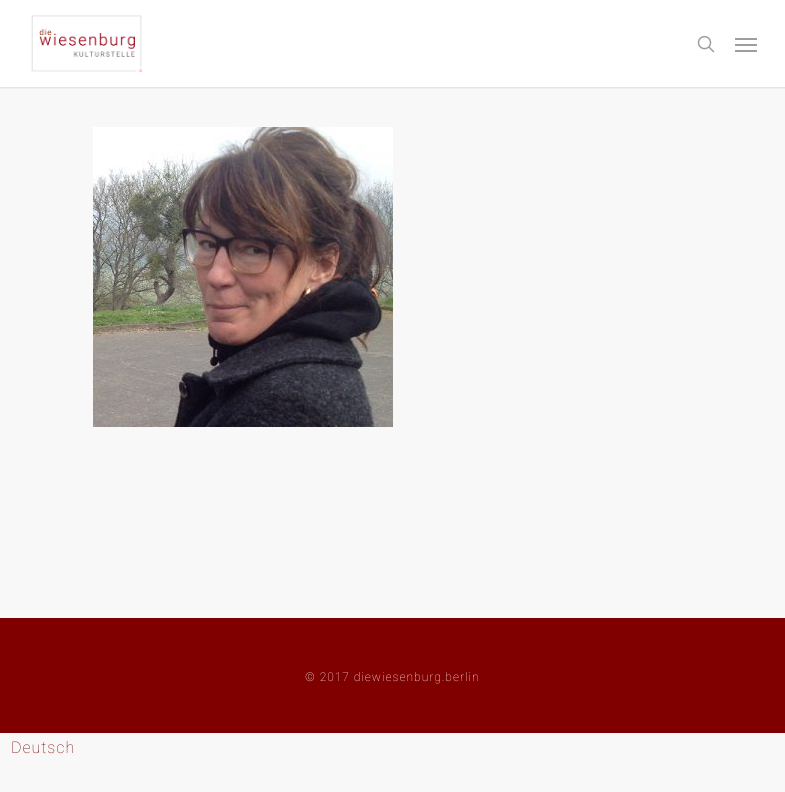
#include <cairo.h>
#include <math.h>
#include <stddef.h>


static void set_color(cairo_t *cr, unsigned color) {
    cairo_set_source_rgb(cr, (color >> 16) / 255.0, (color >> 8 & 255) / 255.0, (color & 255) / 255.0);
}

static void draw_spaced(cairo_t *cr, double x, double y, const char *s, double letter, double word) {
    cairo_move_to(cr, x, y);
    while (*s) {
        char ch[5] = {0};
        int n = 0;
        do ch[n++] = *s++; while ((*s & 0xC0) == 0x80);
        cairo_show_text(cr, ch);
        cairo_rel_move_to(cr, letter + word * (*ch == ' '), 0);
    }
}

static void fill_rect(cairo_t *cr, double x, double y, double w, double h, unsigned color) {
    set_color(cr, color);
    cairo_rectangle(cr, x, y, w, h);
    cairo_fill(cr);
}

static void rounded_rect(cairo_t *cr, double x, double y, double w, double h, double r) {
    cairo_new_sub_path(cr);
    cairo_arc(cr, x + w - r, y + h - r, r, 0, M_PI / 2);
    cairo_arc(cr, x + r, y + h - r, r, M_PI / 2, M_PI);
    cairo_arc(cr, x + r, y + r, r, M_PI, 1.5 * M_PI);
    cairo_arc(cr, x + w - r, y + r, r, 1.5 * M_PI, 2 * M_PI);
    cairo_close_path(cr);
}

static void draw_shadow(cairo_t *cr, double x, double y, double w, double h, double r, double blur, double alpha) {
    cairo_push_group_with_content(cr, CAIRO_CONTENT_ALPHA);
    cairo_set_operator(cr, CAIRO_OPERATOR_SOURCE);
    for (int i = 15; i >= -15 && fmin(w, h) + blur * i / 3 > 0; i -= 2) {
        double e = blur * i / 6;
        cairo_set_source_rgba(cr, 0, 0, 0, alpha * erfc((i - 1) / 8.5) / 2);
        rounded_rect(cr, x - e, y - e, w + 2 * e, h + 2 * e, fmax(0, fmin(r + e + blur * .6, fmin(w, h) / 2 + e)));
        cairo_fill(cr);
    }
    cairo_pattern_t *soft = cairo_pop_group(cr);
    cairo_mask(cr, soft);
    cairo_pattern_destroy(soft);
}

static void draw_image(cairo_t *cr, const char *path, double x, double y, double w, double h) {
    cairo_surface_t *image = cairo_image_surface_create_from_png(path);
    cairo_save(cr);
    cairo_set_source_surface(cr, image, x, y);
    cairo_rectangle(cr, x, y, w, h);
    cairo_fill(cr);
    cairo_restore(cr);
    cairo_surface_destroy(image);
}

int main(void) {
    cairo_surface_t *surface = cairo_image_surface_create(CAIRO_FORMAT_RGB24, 785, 792);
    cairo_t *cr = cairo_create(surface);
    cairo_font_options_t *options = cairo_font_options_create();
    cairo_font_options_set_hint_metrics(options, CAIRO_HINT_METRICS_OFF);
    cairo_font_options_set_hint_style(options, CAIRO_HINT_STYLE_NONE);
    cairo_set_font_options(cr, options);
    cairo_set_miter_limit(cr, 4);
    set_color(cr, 0xF8F8F8);
    cairo_paint(cr);
    fill_rect(cr, 0, 0, 785, 87, 0xFFFFFF);
    cairo_save(cr);
    cairo_rectangle(cr, 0, 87, 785, 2);
    cairo_clip(cr);
    set_color(cr, 0x000000);
    draw_shadow(cr, 0, 0, 785, 87, 0, 1.5, 0.22);
    cairo_restore(cr);
    draw_image(cr, "assets/img1.png", 31, 15, 112, 58);
    draw_image(cr, "assets/img2.png", 697, 35, 18, 18);
    fill_rect(cr, 735, 38, 22, 2, 0x9E9E9E);
    fill_rect(cr, 735, 50, 22, 2, 0x9E9E9E);
    fill_rect(cr, 735, 44, 22, 2, 0x9E9E9E);
    draw_image(cr, "assets/img3.png", 93, 127, 300, 300);
    fill_rect(cr, 0, 618, 785, 115, 0x800000);
    cairo_select_font_face(cr, "Roboto Thin", CAIRO_FONT_SLANT_NORMAL, CAIRO_FONT_WEIGHT_NORMAL);
    cairo_set_font_size(cr, 12);
    set_color(cr, 0xFFFFFF);
    draw_spaced(cr, 305, 681, "© 2017 diewiesenburg.berlin", 1, 0);
    cairo_set_font_size(cr, 16);
    set_color(cr, 0x800000);
    draw_spaced(cr, 11, 753, "Deutsch", 1, 0);
    cairo_surface_write_to_png(surface, "output.png");
    cairo_font_options_destroy(options);
    cairo_destroy(cr);
    cairo_surface_destroy(surface);
    return 0;
}
